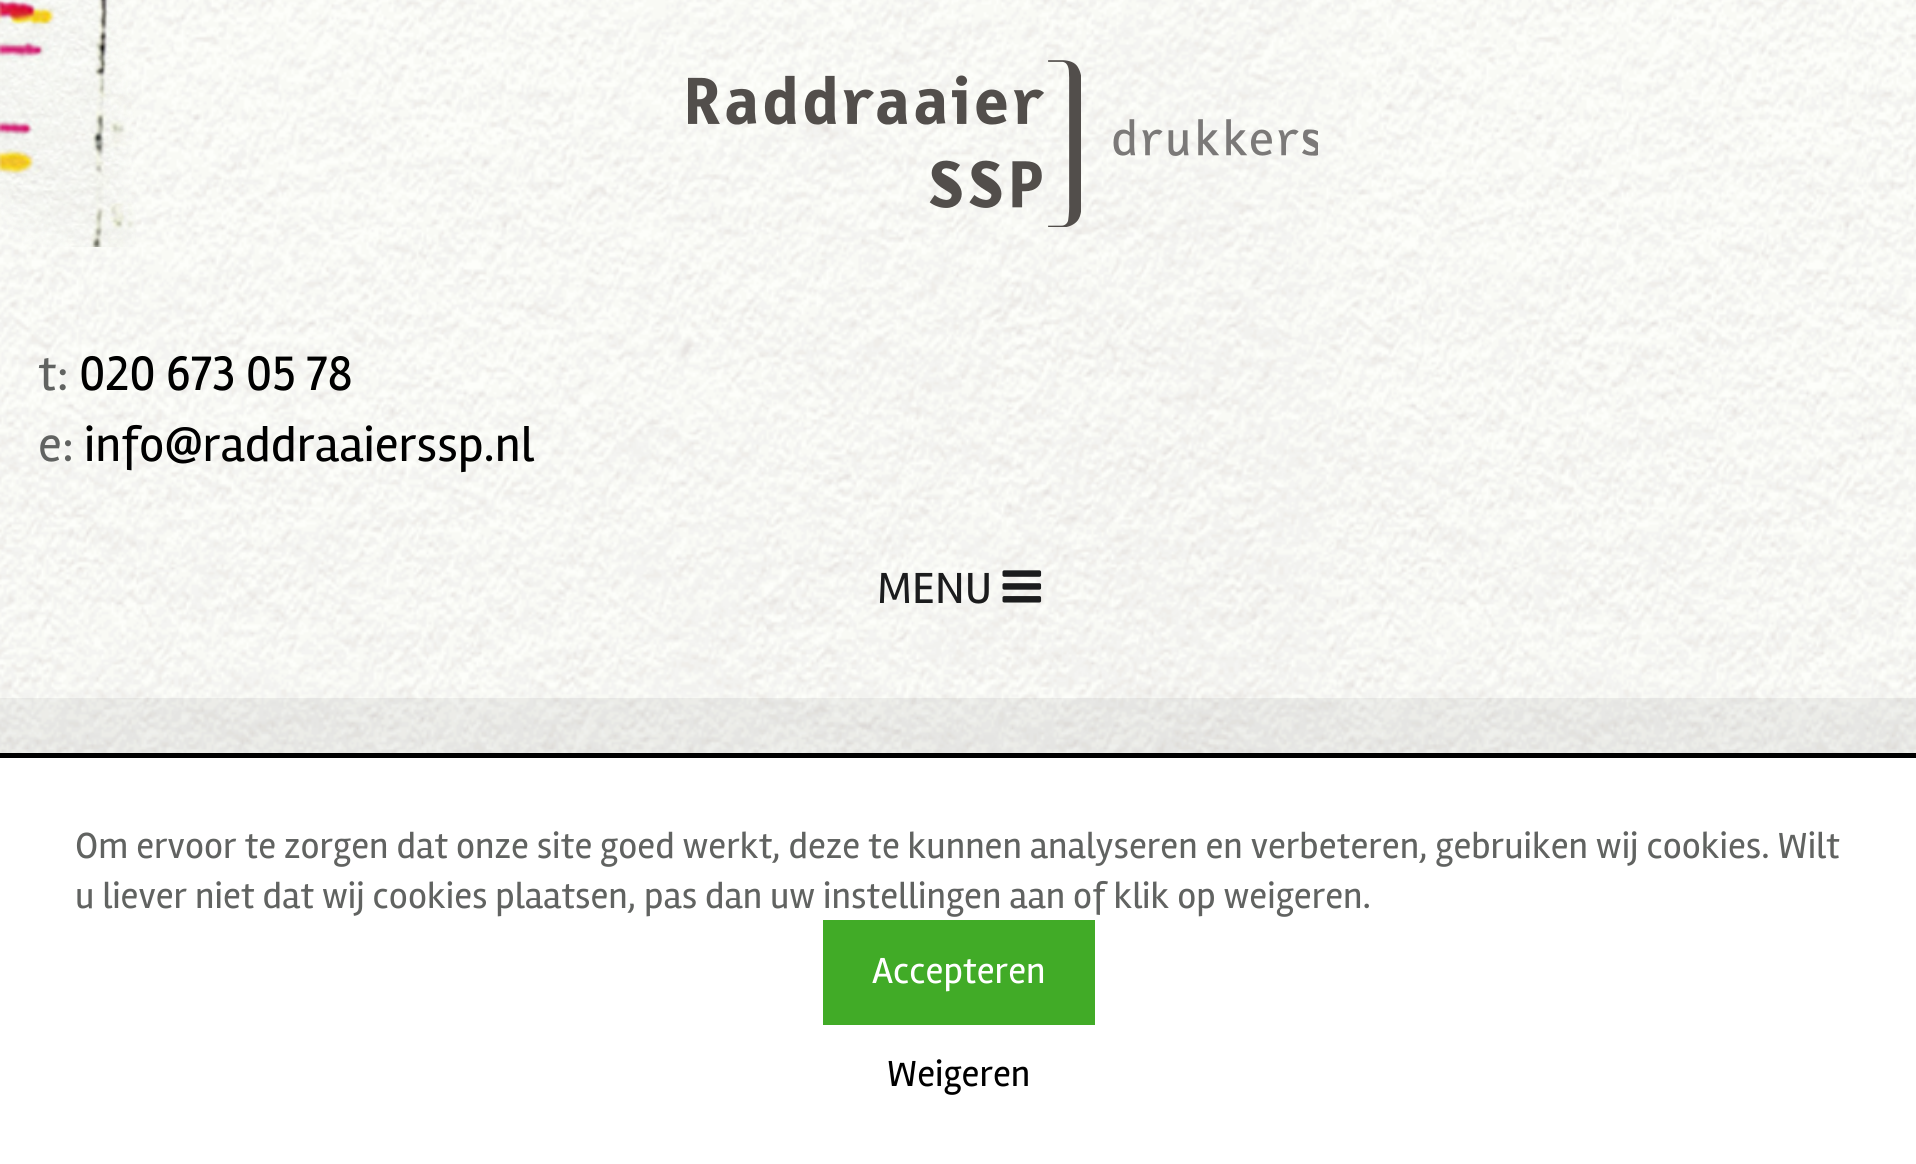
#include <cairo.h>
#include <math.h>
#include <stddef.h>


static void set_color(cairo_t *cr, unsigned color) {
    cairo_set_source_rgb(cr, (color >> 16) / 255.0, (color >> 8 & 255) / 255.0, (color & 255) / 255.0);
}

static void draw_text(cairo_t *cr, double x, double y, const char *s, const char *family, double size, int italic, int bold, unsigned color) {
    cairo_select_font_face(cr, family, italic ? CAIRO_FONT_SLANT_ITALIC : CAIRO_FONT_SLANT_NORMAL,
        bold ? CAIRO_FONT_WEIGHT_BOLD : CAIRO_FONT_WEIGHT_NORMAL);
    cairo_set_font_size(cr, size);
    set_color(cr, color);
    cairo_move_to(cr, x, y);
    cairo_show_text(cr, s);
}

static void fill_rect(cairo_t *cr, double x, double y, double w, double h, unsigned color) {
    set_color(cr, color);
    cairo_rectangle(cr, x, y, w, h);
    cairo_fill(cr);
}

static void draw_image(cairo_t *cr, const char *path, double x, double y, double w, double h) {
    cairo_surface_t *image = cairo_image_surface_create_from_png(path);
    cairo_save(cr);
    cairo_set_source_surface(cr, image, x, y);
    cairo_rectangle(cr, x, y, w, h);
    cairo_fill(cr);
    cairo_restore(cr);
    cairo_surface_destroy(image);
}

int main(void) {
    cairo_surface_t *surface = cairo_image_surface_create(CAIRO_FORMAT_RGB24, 1916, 1164);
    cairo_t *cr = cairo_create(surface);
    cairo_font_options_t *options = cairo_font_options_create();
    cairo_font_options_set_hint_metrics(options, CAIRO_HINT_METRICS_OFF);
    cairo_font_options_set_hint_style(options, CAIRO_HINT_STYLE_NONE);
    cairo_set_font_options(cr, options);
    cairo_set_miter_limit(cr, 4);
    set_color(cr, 0xFFFFFF);
    cairo_paint(cr);
    draw_image(cr, "assets/img1.png", 0, 0, 1916, 753);
    draw_image(cr, "assets/img2.png", 0, 0, 136, 247);
    draw_image(cr, "assets/img3.png", 688, 60, 630, 167);
    draw_text(cr, 38, 390, "t:", "Rambla", 50, 0, 0, 0x616361);
    draw_text(cr, 79, 390, "020 673 05 78", "Rambla", 50, 0, 0, 0x000000);
    draw_text(cr, 38, 461, "e:", "Rambla", 50, 0, 0, 0x616361);
    draw_text(cr, 84, 461, "info@raddraaierssp.nl", "Rambla", 50, 0, 0, 0x000000);
    draw_text(cr, 877, 603, "MENU", "Rambla", 45, 0, 0, 0x1B1C1D);
    draw_image(cr, "assets/img4.png", 1002, 570, 40, 33);
    cairo_set_source_rgba(cr, 0.455, 0.459, 0.463, 0.1);
    cairo_rectangle(cr, 0, 698, 1916, 55);
    cairo_fill(cr);
    fill_rect(cr, 0, 753, 1916, 5, 0x000000);
    draw_text(cr, 75, 858, "Om ervoor te zorgen dat onze site goed werkt, deze te kunnen analyseren en verbeteren, gebruiken wij cookies. Wilt", "Rambla", 37.5, 0, 0, 0x616361);
    draw_text(cr, 75, 908, "u liever niet dat wij cookies plaatsen, pas dan uw instellingen aan of klik op weigeren.", "Rambla", 37.5, 0, 0, 0x616361);
    fill_rect(cr, 823, 920, 272, 105, 0x41AB27);
    draw_text(cr, 872, 983, "Accepteren", "Rambla", 37.5, 0, 0, 0xFFFFFF);
    draw_text(cr, 887, 1086, "Weigeren", "Rambla", 37.5, 0, 0, 0x000000);
    cairo_surface_write_to_png(surface, "output.png");
    cairo_font_options_destroy(options);
    cairo_destroy(cr);
    cairo_surface_destroy(surface);
    return 0;
}
